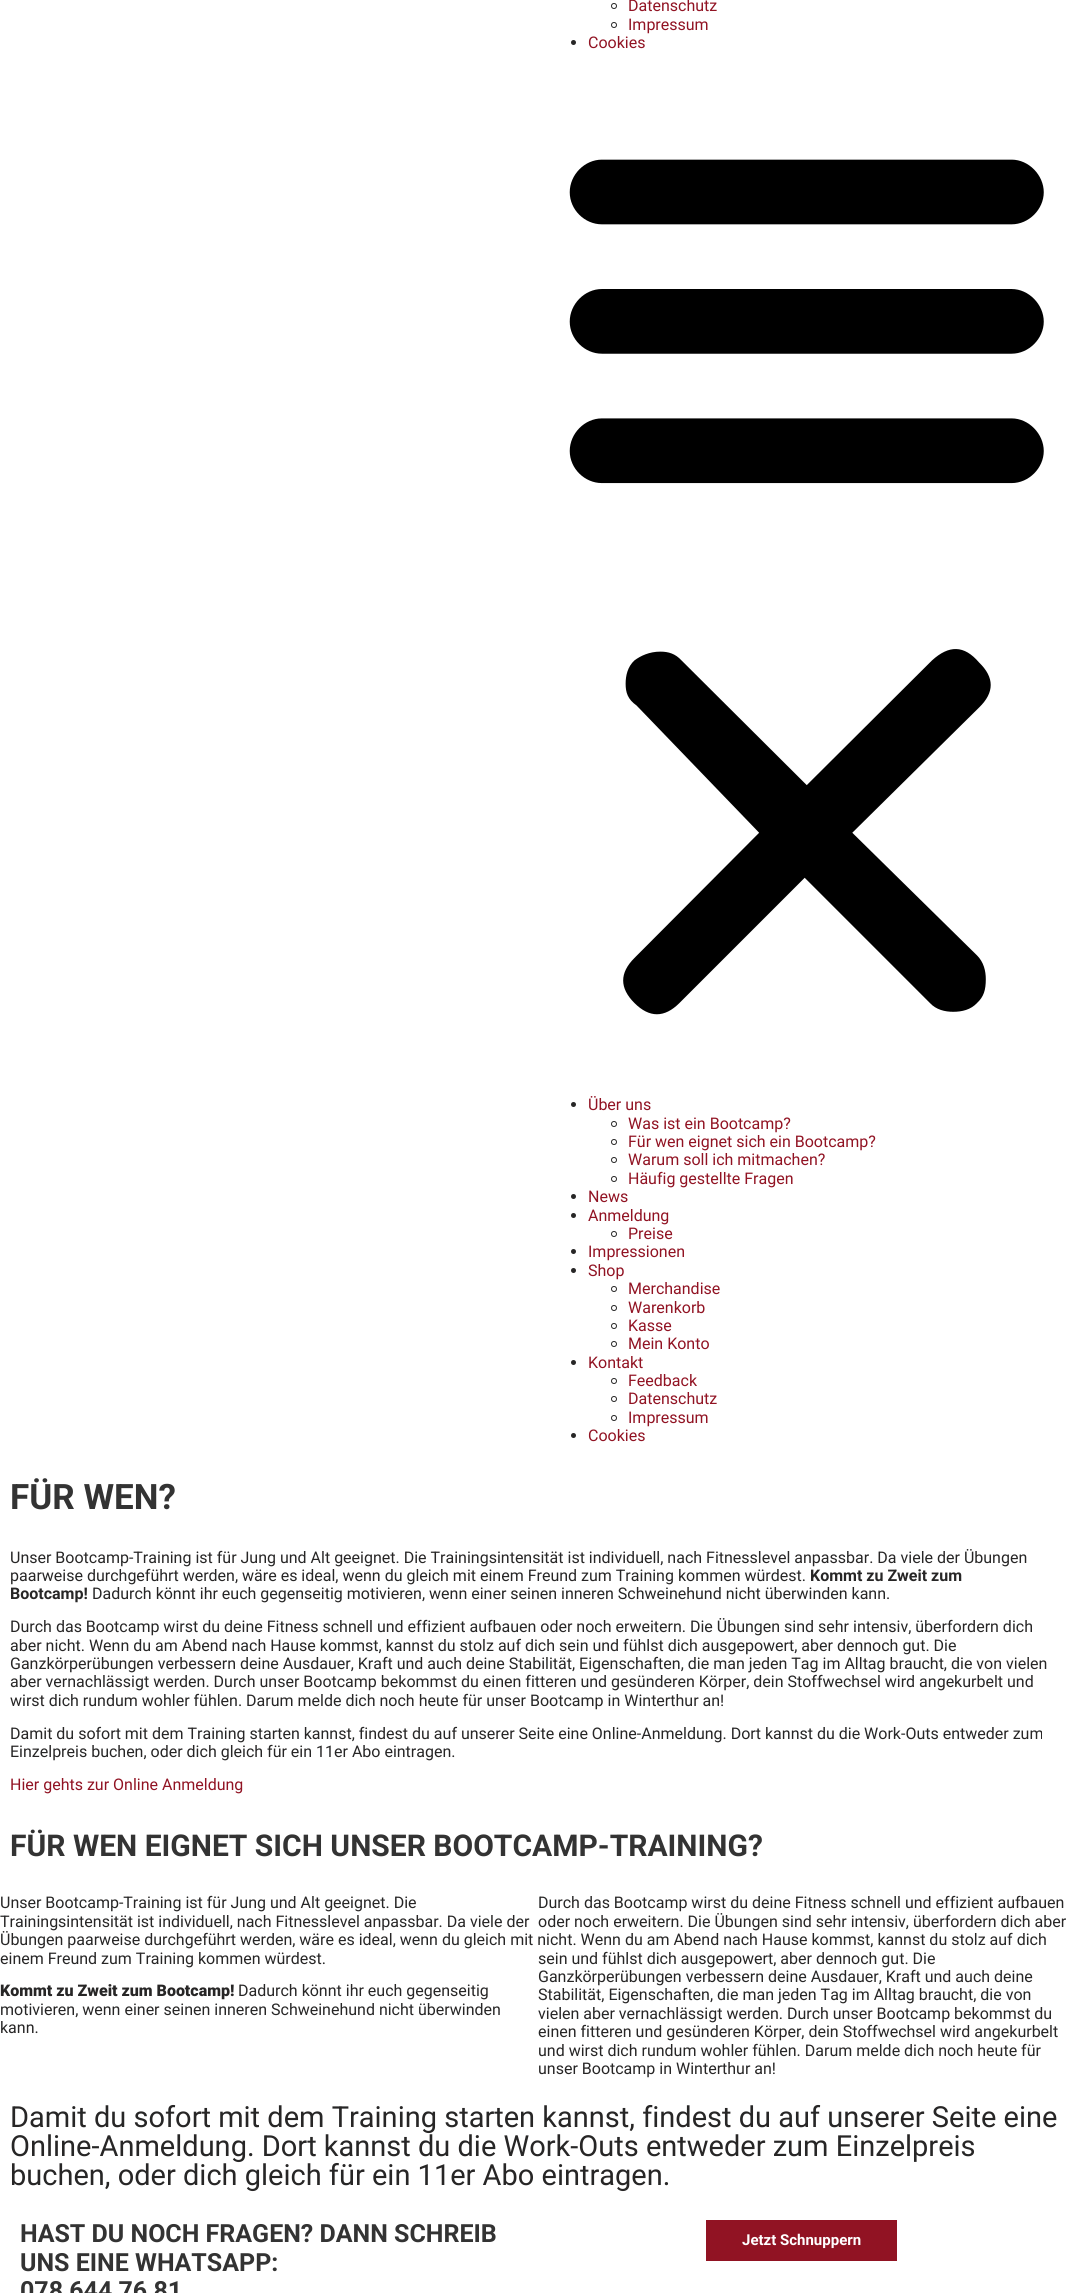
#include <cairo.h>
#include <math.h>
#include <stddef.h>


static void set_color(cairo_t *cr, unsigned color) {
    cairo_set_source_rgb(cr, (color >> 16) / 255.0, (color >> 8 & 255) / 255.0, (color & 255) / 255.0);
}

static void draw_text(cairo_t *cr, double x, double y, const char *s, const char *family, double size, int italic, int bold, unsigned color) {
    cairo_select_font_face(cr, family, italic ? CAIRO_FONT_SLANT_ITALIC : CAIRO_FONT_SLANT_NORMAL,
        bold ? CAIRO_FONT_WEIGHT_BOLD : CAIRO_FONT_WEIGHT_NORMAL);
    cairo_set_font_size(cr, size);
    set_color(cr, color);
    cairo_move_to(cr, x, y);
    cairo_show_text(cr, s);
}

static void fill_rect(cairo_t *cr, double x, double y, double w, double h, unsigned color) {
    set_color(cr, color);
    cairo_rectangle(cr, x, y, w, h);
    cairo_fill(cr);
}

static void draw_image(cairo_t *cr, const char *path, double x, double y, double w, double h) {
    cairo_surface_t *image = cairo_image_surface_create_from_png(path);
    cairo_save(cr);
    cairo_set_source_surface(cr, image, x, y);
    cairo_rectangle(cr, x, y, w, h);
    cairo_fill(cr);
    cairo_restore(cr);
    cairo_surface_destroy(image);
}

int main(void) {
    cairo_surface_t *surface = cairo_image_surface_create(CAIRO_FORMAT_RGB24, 1075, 2293);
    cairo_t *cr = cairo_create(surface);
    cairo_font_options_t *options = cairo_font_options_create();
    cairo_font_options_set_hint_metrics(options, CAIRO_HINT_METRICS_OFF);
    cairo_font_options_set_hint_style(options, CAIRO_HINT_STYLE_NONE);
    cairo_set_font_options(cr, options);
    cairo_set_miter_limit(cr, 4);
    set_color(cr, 0xFFFFFF);
    cairo_paint(cr);
    cairo_arc(cr, 614, 6, 2.5, 0, 2 * M_PI);
    set_color(cr, 0x272626);
    cairo_set_line_width(cr, 1);
    cairo_stroke(cr);
    draw_text(cr, 628, 11, "Datenschutz", "Roboto", 16, 0, 0, 0x911323);
    cairo_new_path(cr);
    cairo_arc(cr, 614, 25, 2.5, 0, 2 * M_PI);
    set_color(cr, 0x272626);
    cairo_stroke(cr);
    draw_text(cr, 628, 30, "Impressum", "Roboto", 16, 0, 0, 0x911323);
    set_color(cr, 0x272626);
    cairo_new_path(cr);
    cairo_arc(cr, 573.5, 42.5, 2.5, 0, 2 * M_PI);
    cairo_fill(cr);
    draw_text(cr, 588, 48, "Cookies", "Roboto", 16, 0, 0, 0x911323);
    draw_image(cr, "assets/img1.png", 569, 159, 475, 325);
    draw_image(cr, "assets/img2.png", 623, 649, 368, 366);
    set_color(cr, 0x272626);
    cairo_arc(cr, 573.5, 1104.5, 2.5, 0, 2 * M_PI);
    cairo_fill(cr);
    draw_text(cr, 588, 1110, "Über uns", "Roboto", 16, 0, 0, 0x911323);
    cairo_new_path(cr);
    cairo_arc(cr, 614, 1124, 2.5, 0, 2 * M_PI);
    set_color(cr, 0x272626);
    cairo_stroke(cr);
    draw_text(cr, 628, 1129, "Was ist ein Bootcamp?", "Roboto", 16, 0, 0, 0x911323);
    cairo_new_path(cr);
    cairo_arc(cr, 614, 1142, 2.5, 0, 2 * M_PI);
    set_color(cr, 0x272626);
    cairo_stroke(cr);
    draw_text(cr, 628, 1147, "Für wen eignet sich ein Bootcamp?", "Roboto", 16, 0, 0, 0x911323);
    cairo_new_path(cr);
    cairo_arc(cr, 614, 1160, 2.5, 0, 2 * M_PI);
    set_color(cr, 0x272626);
    cairo_stroke(cr);
    draw_text(cr, 628, 1165, "Warum soll ich mitmachen?", "Roboto", 16, 0, 0, 0x911323);
    cairo_new_path(cr);
    cairo_arc(cr, 614, 1179, 2.5, 0, 2 * M_PI);
    set_color(cr, 0x272626);
    cairo_stroke(cr);
    draw_text(cr, 628, 1184, "Häufig gestellte Fragen", "Roboto", 16, 0, 0, 0x911323);
    set_color(cr, 0x272626);
    cairo_new_path(cr);
    cairo_arc(cr, 573.5, 1196.5, 2.5, 0, 2 * M_PI);
    cairo_fill(cr);
    draw_text(cr, 588, 1202, "News", "Roboto", 16, 0, 0, 0x911323);
    set_color(cr, 0x272626);
    cairo_new_path(cr);
    cairo_arc(cr, 573.5, 1215.5, 2.5, 0, 2 * M_PI);
    cairo_fill(cr);
    draw_text(cr, 588, 1221, "Anmeldung", "Roboto", 16, 0, 0, 0x911323);
    cairo_new_path(cr);
    cairo_arc(cr, 614, 1234, 2.5, 0, 2 * M_PI);
    set_color(cr, 0x272626);
    cairo_stroke(cr);
    draw_text(cr, 628, 1239, "Preise", "Roboto", 16, 0, 0, 0x911323);
    set_color(cr, 0x272626);
    cairo_new_path(cr);
    cairo_arc(cr, 573.5, 1251.5, 2.5, 0, 2 * M_PI);
    cairo_fill(cr);
    draw_text(cr, 588, 1257, "Impressionen", "Roboto", 16, 0, 0, 0x911323);
    set_color(cr, 0x272626);
    cairo_new_path(cr);
    cairo_arc(cr, 573.5, 1270.5, 2.5, 0, 2 * M_PI);
    cairo_fill(cr);
    draw_text(cr, 588, 1276, "Shop", "Roboto", 16, 0, 0, 0x911323);
    cairo_new_path(cr);
    cairo_arc(cr, 614, 1289, 2.5, 0, 2 * M_PI);
    set_color(cr, 0x272626);
    cairo_stroke(cr);
    draw_text(cr, 628, 1294, "Merchandise", "Roboto", 16, 0, 0, 0x911323);
    cairo_new_path(cr);
    cairo_arc(cr, 614, 1308, 2.5, 0, 2 * M_PI);
    set_color(cr, 0x272626);
    cairo_stroke(cr);
    draw_text(cr, 628, 1313, "Warenkorb", "Roboto", 16, 0, 0, 0x911323);
    cairo_new_path(cr);
    cairo_arc(cr, 614, 1326, 2.5, 0, 2 * M_PI);
    set_color(cr, 0x272626);
    cairo_stroke(cr);
    draw_text(cr, 628, 1331, "Kasse", "Roboto", 16, 0, 0, 0x911323);
    cairo_new_path(cr);
    cairo_arc(cr, 614, 1344, 2.5, 0, 2 * M_PI);
    set_color(cr, 0x272626);
    cairo_stroke(cr);
    draw_text(cr, 628, 1349, "Mein Konto", "Roboto", 16, 0, 0, 0x911323);
    set_color(cr, 0x272626);
    cairo_new_path(cr);
    cairo_arc(cr, 573.5, 1362.5, 2.5, 0, 2 * M_PI);
    cairo_fill(cr);
    draw_text(cr, 588, 1368, "Kontakt", "Roboto", 16, 0, 0, 0x911323);
    cairo_new_path(cr);
    cairo_arc(cr, 614, 1381, 2.5, 0, 2 * M_PI);
    set_color(cr, 0x272626);
    cairo_stroke(cr);
    draw_text(cr, 628, 1386, "Feedback", "Roboto", 16, 0, 0, 0x911323);
    cairo_new_path(cr);
    cairo_arc(cr, 614, 1399, 2.5, 0, 2 * M_PI);
    set_color(cr, 0x272626);
    cairo_stroke(cr);
    draw_text(cr, 628, 1404, "Datenschutz", "Roboto", 16, 0, 0, 0x911323);
    cairo_new_path(cr);
    cairo_arc(cr, 614, 1418, 2.5, 0, 2 * M_PI);
    set_color(cr, 0x272626);
    cairo_stroke(cr);
    draw_text(cr, 628, 1423, "Impressum", "Roboto", 16, 0, 0, 0x911323);
    set_color(cr, 0x272626);
    cairo_new_path(cr);
    cairo_arc(cr, 573.5, 1435.5, 2.5, 0, 2 * M_PI);
    cairo_fill(cr);
    draw_text(cr, 588, 1441, "Cookies", "Roboto", 16, 0, 0, 0x911323);
    draw_text(cr, 10, 1509, "FÜR WEN?", "Roboto", 35, 0, 1, 0x333333);
    draw_text(cr, 10, 1563, "Unser Bootcamp-Training ist für Jung und Alt geeignet. Die Trainingsintensität ist individuell, nach Fitnesslevel anpassbar. Da viele der Übungen", "Roboto", 16, 0, 0, 0x272626);
    draw_text(cr, 10, 1581, "paarweise durchgeführt werden, wäre es ideal, wenn du gleich mit einem Freund zum Training kommen würdest.", "Roboto", 16, 0, 0, 0x272626);
    draw_text(cr, 810, 1581, "Kommt zu Zweit zum", "Roboto", 16, 0, 1, 0x272626);
    draw_text(cr, 10, 1599, "Bootcamp!", "Roboto", 16, 0, 1, 0x272626);
    draw_text(cr, 92, 1599, "Dadurch könnt ihr euch gegenseitig motivieren, wenn einer seinen inneren Schweinehund nicht überwinden kann.", "Roboto", 16, 0, 0, 0x272626);
    draw_text(cr, 10, 1632, "Durch das Bootcamp wirst du deine Fitness schnell und effizient aufbauen oder noch erweitern. Die Übungen sind sehr intensiv, überfordern dich", "Roboto", 16, 0, 0, 0x272626);
    draw_text(cr, 10, 1651, "aber nicht. Wenn du am Abend nach Hause kommst, kannst du stolz auf dich sein und fühlst dich ausgepowert, aber dennoch gut. Die", "Roboto", 16, 0, 0, 0x272626);
    draw_text(cr, 10, 1669, "Ganzkörperübungen verbessern deine Ausdauer, Kraft und auch deine Stabilität, Eigenschaften, die man jeden Tag im Alltag braucht, die von vielen", "Roboto", 16, 0, 0, 0x272626);
    draw_text(cr, 10, 1687, "aber vernachlässigt werden. Durch unser Bootcamp bekommst du einen fitteren und gesünderen Körper, dein Stoffwechsel wird angekurbelt und", "Roboto", 16, 0, 0, 0x272626);
    draw_text(cr, 10, 1706, "wirst dich rundum wohler fühlen. Darum melde dich noch heute für unser Bootcamp in Winterthur an!", "Roboto", 16, 0, 0, 0x272626);
    draw_text(cr, 10, 1739, "Damit du sofort mit dem Training starten kannst, findest du auf unserer Seite eine Online-Anmeldung. Dort kannst du die Work-Outs entweder zum", "Roboto", 16, 0, 0, 0x272626);
    draw_text(cr, 10, 1757, "Einzelpreis buchen, oder dich gleich für ein 11er Abo eintragen.", "Roboto", 16, 0, 0, 0x272626);
    draw_text(cr, 10, 1790, "Hier gehts zur Online Anmeldung", "Roboto", 16, 0, 0, 0x911323);
    draw_text(cr, 10, 1856, "FÜR WEN EIGNET SICH UNSER BOOTCAMP-TRAINING?", "Roboto", 30, 0, 1, 0x333333);
    draw_text(cr, 0, 1908, "Unser Bootcamp-Training ist für Jung und Alt geeignet. Die", "Roboto", 16, 0, 0, 0x272626);
    draw_text(cr, 0, 1927, "Trainingsintensität ist individuell, nach Fitnesslevel anpassbar. Da viele der", "Roboto", 16, 0, 0, 0x272626);
    draw_text(cr, 0, 1945, "Übungen paarweise durchgeführt werden, wäre es ideal, wenn du gleich mit nicht. Wenn du am Abend nach Hause kommst, kannst du stolz auf dich", "Roboto", 16, 0, 0, 0x272626);
    draw_text(cr, 0, 1964, "einem Freund zum Training kommen würdest.", "Roboto", 16, 0, 0, 0x272626);
    draw_text(cr, 0, 1996, "Kommt zu Zweit zum Bootcamp!", "Roboto Black", 16, 0, 0, 0x272626);
    draw_text(cr, 238, 1996, "Dadurch könnt ihr euch gegenseitig", "Roboto", 16, 0, 0, 0x272626);
    draw_text(cr, 0, 2015, "motivieren, wenn einer seinen inneren Schweinehund nicht überwinden", "Roboto", 16, 0, 0, 0x272626);
    draw_text(cr, 0, 2033, "kann.", "Roboto", 16, 0, 0, 0x272626);
    draw_text(cr, 538, 1908, "Durch das Bootcamp wirst du deine Fitness schnell und effizient aufbauen", "Roboto", 16, 0, 0, 0x272626);
    draw_text(cr, 538, 1927, "oder noch erweitern. Die Übungen sind sehr intensiv, überfordern dich aber", "Roboto", 16, 0, 0, 0x272626);
    draw_text(cr, 538, 1964, "sein und fühlst dich ausgepowert, aber dennoch gut. Die", "Roboto", 16, 0, 0, 0x272626);
    draw_text(cr, 538, 1982, "Ganzkörperübungen verbessern deine Ausdauer, Kraft und auch deine", "Roboto", 16, 0, 0, 0x272626);
    draw_text(cr, 538, 2000, "Stabilität, Eigenschaften, die man jeden Tag im Alltag braucht, die von", "Roboto", 16, 0, 0, 0x272626);
    draw_text(cr, 538, 2019, "vielen aber vernachlässigt werden. Durch unser Bootcamp bekommst du", "Roboto", 16, 0, 0, 0x272626);
    draw_text(cr, 538, 2037, "einen fitteren und gesünderen Körper, dein Stoffwechsel wird angekurbelt", "Roboto", 16, 0, 0, 0x272626);
    draw_text(cr, 538, 2056, "und wirst dich rundum wohler fühlen. Darum melde dich noch heute für", "Roboto", 16, 0, 0, 0x272626);
    draw_text(cr, 538, 2074, "unser Bootcamp in Winterthur an!", "Roboto", 16, 0, 0, 0x272626);
    draw_text(cr, 10, 2127, "Damit du sofort mit dem Training starten kannst, findest du auf unserer Seite eine", "Roboto", 29, 0, 0, 0x272626);
    draw_text(cr, 10, 2156, "Online-Anmeldung. Dort kannst du die Work-Outs entweder zum Einzelpreis", "Roboto", 29, 0, 0, 0x272626);
    draw_text(cr, 10, 2185, "buchen, oder dich gleich für ein 11er Abo eintragen.", "Roboto", 29, 0, 0, 0x272626);
    draw_text(cr, 20, 2242, "HAST DU NOCH FRAGEN? DANN SCHREIB", "Roboto", 25, 0, 1, 0x333333);
    draw_text(cr, 20, 2271, "UNS EINE WHATSAPP:", "Roboto", 25, 0, 1, 0x333333);
    draw_text(cr, 20, 2299, "078 644 76 81", "Roboto", 25, 0, 1, 0x333333);
    fill_rect(cr, 706, 2220, 191, 41, 0x911323);
    draw_text(cr, 742, 2245, "Jetzt Schnuppern", "Roboto", 15, 0, 1, 0xFFFFFF);
    cairo_surface_write_to_png(surface, "output.png");
    cairo_font_options_destroy(options);
    cairo_destroy(cr);
    cairo_surface_destroy(surface);
    return 0;
}
